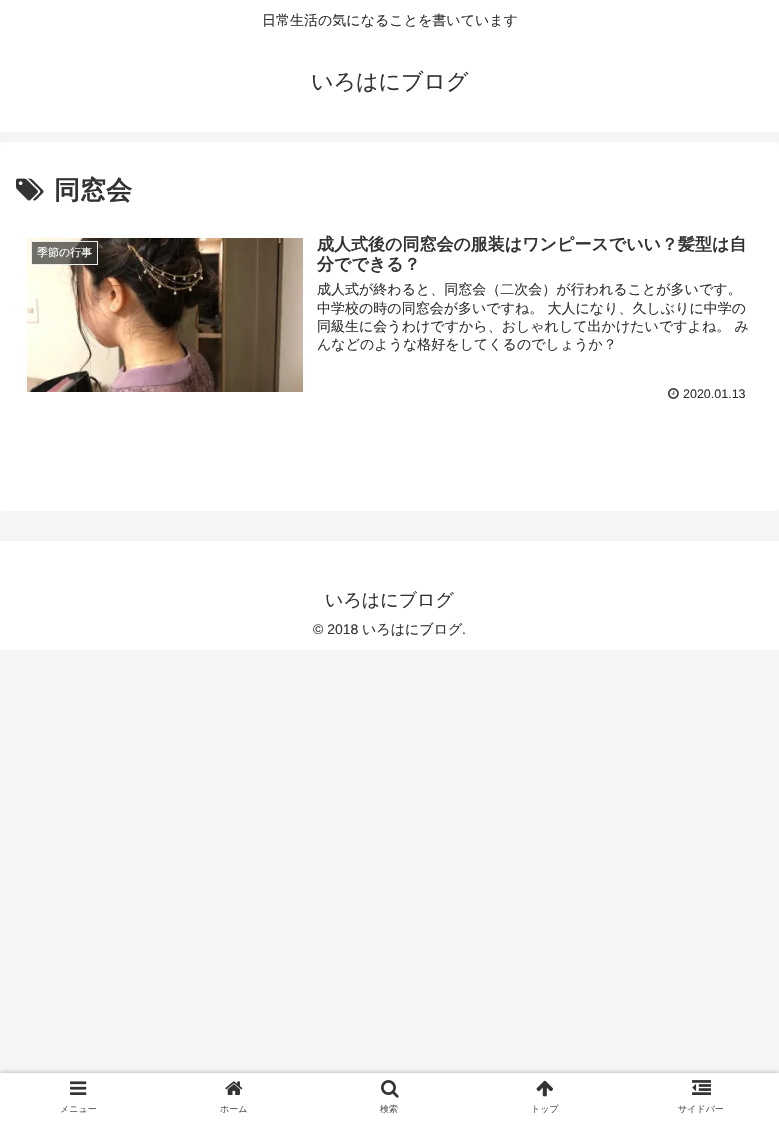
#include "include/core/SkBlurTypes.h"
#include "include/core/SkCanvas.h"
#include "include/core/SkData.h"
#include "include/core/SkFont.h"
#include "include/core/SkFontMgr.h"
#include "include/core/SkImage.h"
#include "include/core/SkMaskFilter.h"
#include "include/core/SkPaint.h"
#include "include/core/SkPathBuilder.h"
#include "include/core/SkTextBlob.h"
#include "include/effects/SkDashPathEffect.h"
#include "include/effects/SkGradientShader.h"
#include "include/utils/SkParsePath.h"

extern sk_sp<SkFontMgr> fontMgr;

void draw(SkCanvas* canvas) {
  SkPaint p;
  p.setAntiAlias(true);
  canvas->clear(SkColorSetRGB(244, 245, 247));
  p.setColor(SK_ColorWHITE);
  canvas->drawRect(SkRect::MakeLTRB(0, 0, 779, 132), p);
  canvas->drawRoundRect(SkRect::MakeLTRB(0, 142, 779, 511), 4, 4, p);
  canvas->drawImageRect(SkImages::DeferredFromEncodedData(SkData::MakeFromFileName("images/1.png")), SkRect::MakeLTRB(16, 178, 44, 201), SkSamplingOptions());
  canvas->drawImageRect(SkImages::DeferredFromEncodedData(SkData::MakeFromFileName("images/2.png")), SkRect::MakeLTRB(27, 238, 303, 392), SkSamplingOptions());
  p.setColor(SkColorSetARGB(179, 51, 51, 51));
  canvas->drawRect(SkRect::MakeLTRB(31.5f, 241.5f, 97.5f, 264.5f), p);
  p.setStyle(SkPaint::kStroke_Style);
  p.setStrokeWidth(1);
  p.setColor(SkColorSetRGB(238, 238, 238));
  canvas->drawRect(SkRect::MakeLTRB(31.5f, 241.5f, 97.5f, 264.5f), p);
  canvas->drawImageRect(SkImages::DeferredFromEncodedData(SkData::MakeFromFileName("images/3.png")), SkRect::MakeLTRB(668, 388, 679, 399), SkSamplingOptions());
  p.setStyle(SkPaint::kFill_Style);
  p.setColor(SK_ColorWHITE);
  canvas->drawRect(SkRect::MakeLTRB(0, 541, 779, 650), p);
  p.setColor(SkColorSetRGB(169, 169, 169));
  p.setMaskFilter(SkMaskFilter::MakeBlur(kNormal_SkBlurStyle, 2.5f));
  canvas->drawRect(SkRect::MakeLTRB(0, 1073, 779, 1123), p);
  p.setMaskFilter(nullptr);
  p.setColor(SK_ColorWHITE);
  canvas->drawRect(SkRect::MakeLTRB(0, 1073, 779, 1123), p);
  canvas->drawImageRect(SkImages::DeferredFromEncodedData(SkData::MakeFromFileName("images/4.png")), SkRect::MakeLTRB(70, 1081, 87, 1095), SkSamplingOptions());
  canvas->drawImageRect(SkImages::DeferredFromEncodedData(SkData::MakeFromFileName("images/5.png")), SkRect::MakeLTRB(225, 1081, 243, 1095), SkSamplingOptions());
  canvas->drawImageRect(SkImages::DeferredFromEncodedData(SkData::MakeFromFileName("images/6.png")), SkRect::MakeLTRB(381, 1080, 399, 1098), SkSamplingOptions());
  canvas->drawImageRect(SkImages::DeferredFromEncodedData(SkData::MakeFromFileName("images/7.png")), SkRect::MakeLTRB(536, 1080, 553, 1097), SkSamplingOptions());
  canvas->drawImageRect(SkImages::DeferredFromEncodedData(SkData::MakeFromFileName("images/8.png")), SkRect::MakeLTRB(692, 1080, 711, 1095), SkSamplingOptions());
  SkFont font1(fontMgr->matchFamilyStyle("WenQuanYi Zen Hei", SkFontStyle(500, SkFontStyle::kNormal_Width, SkFontStyle::kUpright_Slant)), 14);
  font1.setSubpixel(true);
  p.setColor(SkColorSetRGB(51, 51, 51));
  canvas->drawString("日常生活の気になることを書いています", 262, 25, font1, p);
  SkFont font2(fontMgr->matchFamilyStyle("WenQuanYi Zen Hei", SkFontStyle(500, SkFontStyle::kNormal_Width, SkFontStyle::kUpright_Slant)), 22);
  font2.setSubpixel(true);
  canvas->drawString("いろはにブログ", 311, 89, font2, p);
  SkFont font3(fontMgr->matchFamilyStyle("WenQuanYi Zen Hei", SkFontStyle::Bold()), 26);
  font3.setSubpixel(true);
  canvas->drawString("同窓会", 54, 199, font3, p);
  SkFont font4(fontMgr->matchFamilyStyle("WenQuanYi Zen Hei", SkFontStyle(500, SkFontStyle::kNormal_Width, SkFontStyle::kUpright_Slant)), 11);
  font4.setSubpixel(true);
  p.setColor(SK_ColorWHITE);
  canvas->drawString("季節の行事", 37, 256, font4, p);
  SkFont font5(fontMgr->matchFamilyStyle("WenQuanYi Zen Hei", SkFontStyle::Bold()), 17);
  font5.setSubpixel(true);
  p.setColor(SkColorSetRGB(51, 51, 51));
  canvas->drawString("成人式後の同窓会の服装はワンピースでいい？髪型は自", 317, 250, font5, p);
  canvas->drawString("分でできる？", 317, 270, font5, p);
  canvas->drawString("成人式が終わると、同窓会（二次会）が行われることが多いです。", 317, 294, font1, p);
  canvas->drawString("中学校の時の同窓会が多いですね。 大人になり、久しぶりに中学の", 317, 313, font1, p);
  canvas->drawString("同級生に会うわけですから、おしゃれして出かけたいですよね。 み", 317, 331, font1, p);
  canvas->drawString("んなどのような格好をしてくるのでしょうか？", 317, 349, font1, p);
  SkFont font6(fontMgr->matchFamilyStyle("Liberation Sans", SkFontStyle::Normal()), 12.5f);
  font6.setSubpixel(true);
  canvas->drawString("2020.01.13", 683, 398, font6, p);
  SkFont font7(fontMgr->matchFamilyStyle("WenQuanYi Zen Hei", SkFontStyle(500, SkFontStyle::kNormal_Width, SkFontStyle::kUpright_Slant)), 18);
  font7.setSubpixel(true);
  canvas->drawString("いろはにブログ", 325, 606, font7, p);
  SkFont font8(fontMgr->matchFamilyStyle("Liberation Sans", SkFontStyle::Normal()), 14);
  font8.setSubpixel(true);
  canvas->drawString("© 2018", 313, 634, font8, p);
  canvas->drawString("いろはにブログ", 362, 634, font1, p);
  canvas->drawString(".", 462, 634, font8, p);
  SkFont font9(fontMgr->matchFamilyStyle("WenQuanYi Zen Hei", SkFontStyle(500, SkFontStyle::kNormal_Width, SkFontStyle::kUpright_Slant)), 9);
  font9.setSubpixel(true);
  p.setColor(SkColorSetRGB(92, 92, 92));
  canvas->drawString("メニュー", 60, 1112, font9, p);
  canvas->drawString("ホーム", 220, 1112, font9, p);
  canvas->drawString("検索", 380, 1112, font9, p);
  canvas->drawString("トップ", 531, 1112, font9, p);
  canvas->drawString("サイドバー", 678, 1112, font9, p);
}
